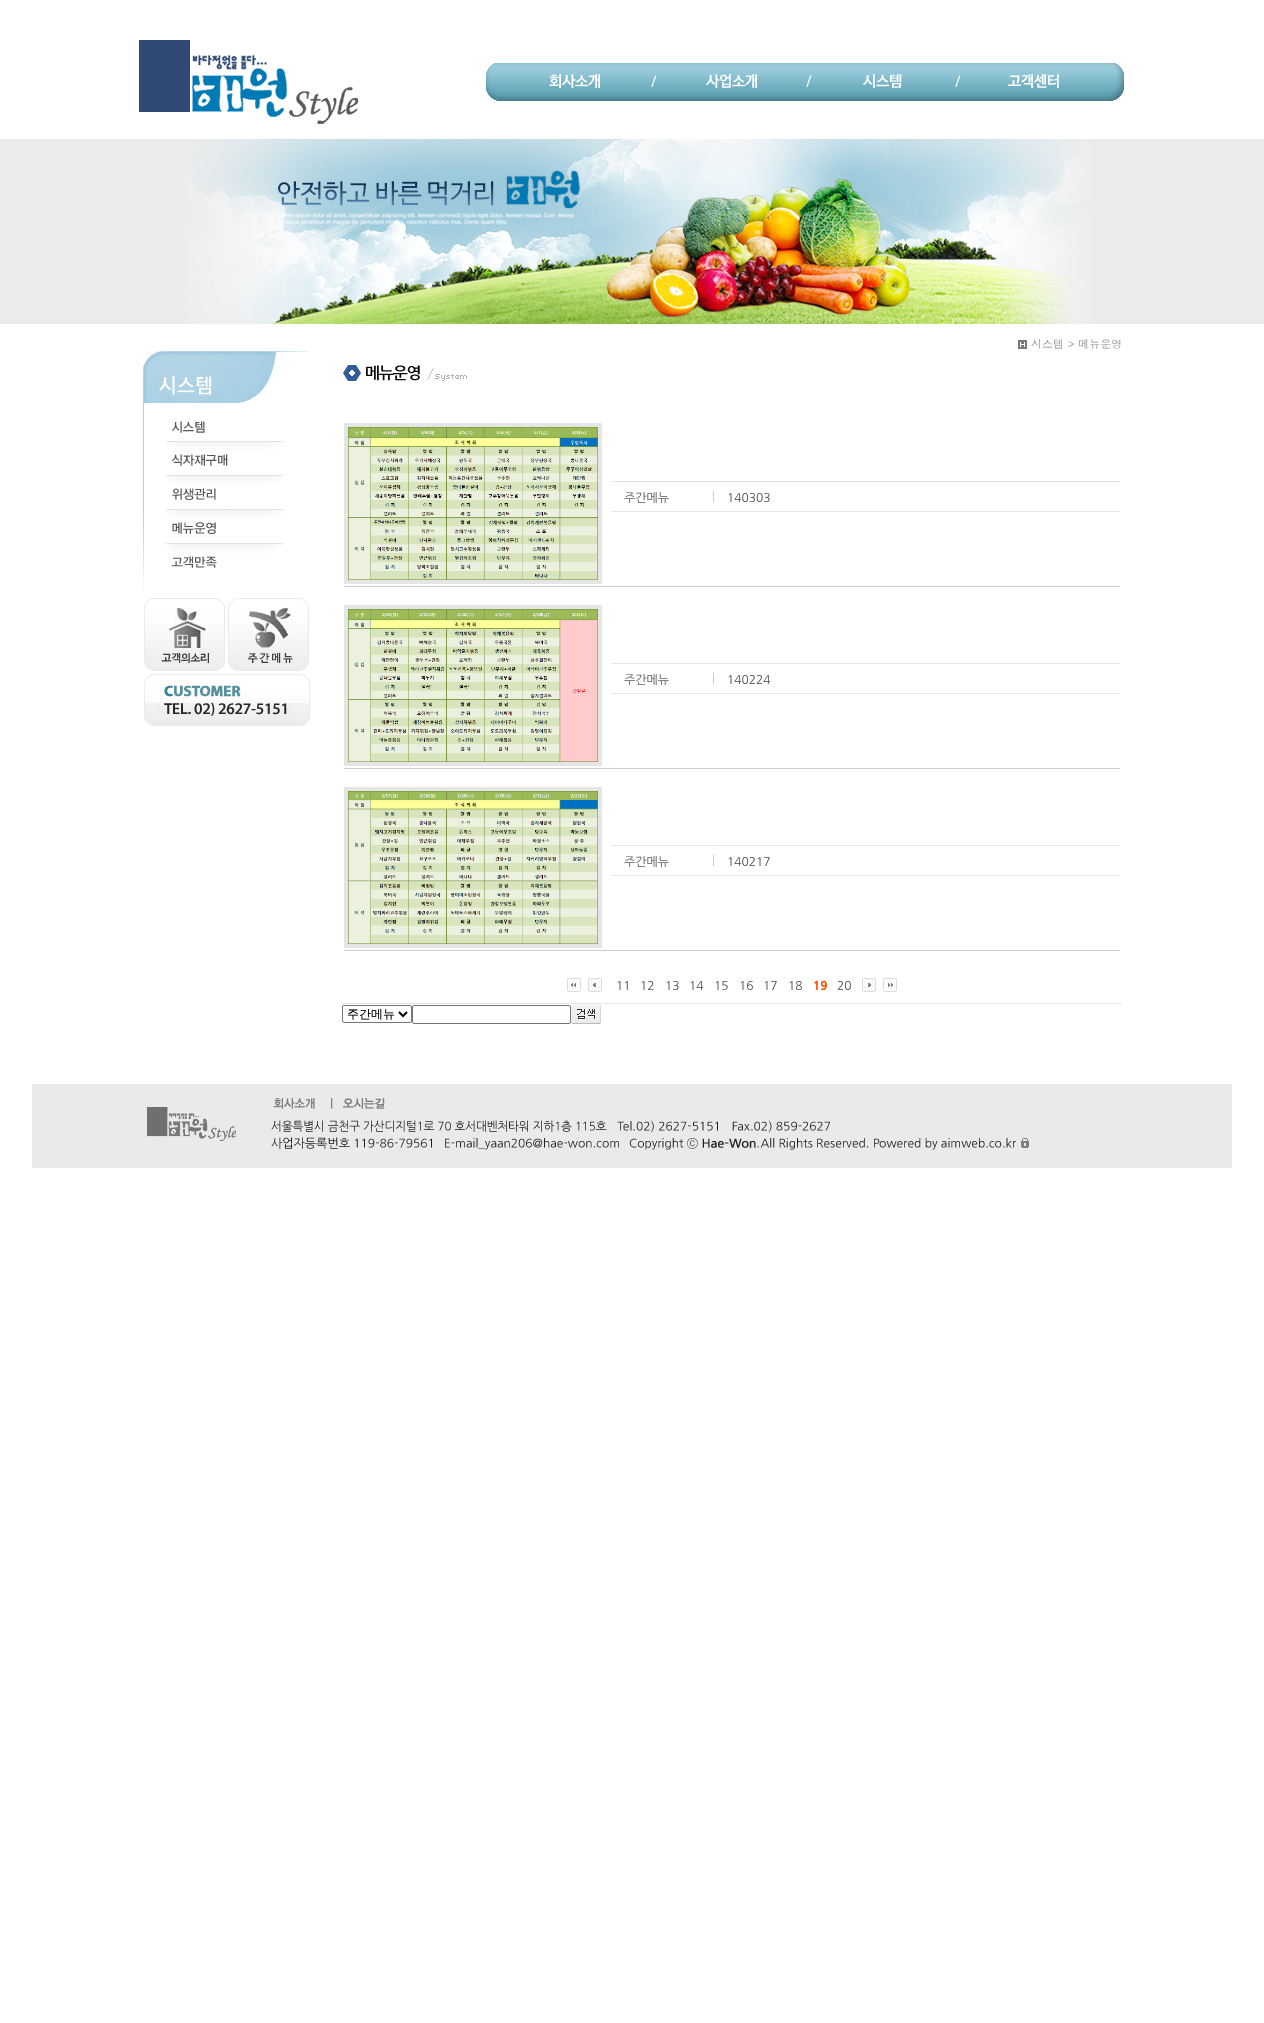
#include "include/core/SkBlurTypes.h"
#include "include/core/SkCanvas.h"
#include "include/core/SkData.h"
#include "include/core/SkFont.h"
#include "include/core/SkFontMgr.h"
#include "include/core/SkImage.h"
#include "include/core/SkMaskFilter.h"
#include "include/core/SkPaint.h"
#include "include/core/SkPathBuilder.h"
#include "include/core/SkTextBlob.h"
#include "include/effects/SkDashPathEffect.h"
#include "include/effects/SkGradientShader.h"
#include "include/utils/SkParsePath.h"

extern sk_sp<SkFontMgr> fontMgr;

void draw(SkCanvas* canvas) {
  SkPaint p;
  p.setAntiAlias(true);
  canvas->clear(SK_ColorWHITE);
  canvas->drawImageRect(SkImages::DeferredFromEncodedData(SkData::MakeFromFileName("images/1.png")), SkRect::MakeLTRB(139, 40, 358, 124), SkSamplingOptions());
  canvas->drawImageRect(SkImages::DeferredFromEncodedData(SkData::MakeFromFileName("images/2.png")), SkRect::MakeLTRB(486, 63, 1124, 101), SkSamplingOptions());
  canvas->drawImageRect(SkImages::DeferredFromEncodedData(SkData::MakeFromFileName("images/3.png")), SkRect::MakeLTRB(549, 74, 600, 88), SkSamplingOptions());
  canvas->drawImageRect(SkImages::DeferredFromEncodedData(SkData::MakeFromFileName("images/4.png")), SkRect::MakeLTRB(705, 74, 757, 88), SkSamplingOptions());
  canvas->drawImageRect(SkImages::DeferredFromEncodedData(SkData::MakeFromFileName("images/5.png")), SkRect::MakeLTRB(862, 74, 902, 88), SkSamplingOptions());
  canvas->drawImageRect(SkImages::DeferredFromEncodedData(SkData::MakeFromFileName("images/6.png")), SkRect::MakeLTRB(1008, 74, 1059, 88), SkSamplingOptions());
  p.setColor(SkColorSetRGB(235, 235, 235));
  canvas->drawRect(SkRect::MakeLTRB(0, 139, 1264, 324), p);
  canvas->drawImageRect(SkImages::DeferredFromEncodedData(SkData::MakeFromFileName("images/7.png")), SkRect::MakeLTRB(185, 139, 1089, 324), SkSamplingOptions());
  canvas->drawImageRect(SkImages::DeferredFromEncodedData(SkData::MakeFromFileName("images/8.png")), SkRect::MakeLTRB(143, 351, 309, 595), SkSamplingOptions());
  canvas->drawImageRect(SkImages::DeferredFromEncodedData(SkData::MakeFromFileName("images/9.png")), SkRect::MakeLTRB(159, 376, 212, 395), SkSamplingOptions());
  canvas->drawImageRect(SkImages::DeferredFromEncodedData(SkData::MakeFromFileName("images/10.png")), SkRect::MakeLTRB(171, 421, 205, 433), SkSamplingOptions());
  canvas->drawImageRect(SkImages::DeferredFromEncodedData(SkData::MakeFromFileName("images/11.png")), SkRect::MakeLTRB(171, 454, 228, 466), SkSamplingOptions());
  canvas->drawImageRect(SkImages::DeferredFromEncodedData(SkData::MakeFromFileName("images/12.png")), SkRect::MakeLTRB(172, 488, 216, 500), SkSamplingOptions());
  canvas->drawImageRect(SkImages::DeferredFromEncodedData(SkData::MakeFromFileName("images/13.png")), SkRect::MakeLTRB(172, 522, 216, 534), SkSamplingOptions());
  canvas->drawImageRect(SkImages::DeferredFromEncodedData(SkData::MakeFromFileName("images/14.png")), SkRect::MakeLTRB(171, 556, 217, 568), SkSamplingOptions());
  canvas->drawImageRect(SkImages::DeferredFromEncodedData(SkData::MakeFromFileName("images/15.png")), SkRect::MakeLTRB(144, 598, 225, 671), SkSamplingOptions());
  canvas->drawImageRect(SkImages::DeferredFromEncodedData(SkData::MakeFromFileName("images/16.png")), SkRect::MakeLTRB(228, 598, 309, 671), SkSamplingOptions());
  canvas->drawImageRect(SkImages::DeferredFromEncodedData(SkData::MakeFromFileName("images/17.png")), SkRect::MakeLTRB(144, 674, 310, 726), SkSamplingOptions());
  canvas->drawImageRect(SkImages::DeferredFromEncodedData(SkData::MakeFromFileName("images/18.png")), SkRect::MakeLTRB(1018, 340, 1027, 349), SkSamplingOptions());
  canvas->drawImageRect(SkImages::DeferredFromEncodedData(SkData::MakeFromFileName("images/19.png")), SkRect::MakeLTRB(343, 365, 467, 381), SkSamplingOptions());
  p.setStyle(SkPaint::kStroke_Style);
  p.setStrokeWidth(4);
  p.setColor(SkColorSetRGB(229, 229, 229));
  canvas->drawRect(SkRect::MakeLTRB(346, 425, 600, 582), p);
  canvas->drawImageRect(SkImages::DeferredFromEncodedData(SkData::MakeFromFileName("images/20.png")), SkRect::MakeLTRB(348, 427, 598, 580), SkSamplingOptions());
  p.setStyle(SkPaint::kFill_Style);
  canvas->drawRect(SkRect::MakeLTRB(612, 481, 1120, 482), p);
  canvas->drawRect(SkRect::MakeLTRB(612, 511, 1120, 512), p);
  p.setColor(SkColorSetRGB(204, 204, 204));
  canvas->drawRect(SkRect::MakeLTRB(713, 491, 714, 502), p);
  canvas->drawRect(SkRect::MakeLTRB(344, 586, 1120, 587), p);
  p.setStyle(SkPaint::kStroke_Style);
  p.setColor(SkColorSetRGB(229, 229, 229));
  canvas->drawRect(SkRect::MakeLTRB(346, 607, 600, 764), p);
  canvas->drawImageRect(SkImages::DeferredFromEncodedData(SkData::MakeFromFileName("images/21.png")), SkRect::MakeLTRB(348, 609, 598, 762), SkSamplingOptions());
  p.setStyle(SkPaint::kFill_Style);
  canvas->drawRect(SkRect::MakeLTRB(612, 663, 1120, 664), p);
  canvas->drawRect(SkRect::MakeLTRB(612, 693, 1120, 694), p);
  p.setColor(SkColorSetRGB(204, 204, 204));
  canvas->drawRect(SkRect::MakeLTRB(713, 673, 714, 684), p);
  canvas->drawRect(SkRect::MakeLTRB(344, 768, 1120, 769), p);
  p.setStyle(SkPaint::kStroke_Style);
  p.setColor(SkColorSetRGB(229, 229, 229));
  canvas->drawRect(SkRect::MakeLTRB(346, 789, 600, 946), p);
  canvas->drawImageRect(SkImages::DeferredFromEncodedData(SkData::MakeFromFileName("images/22.png")), SkRect::MakeLTRB(348, 791, 598, 944), SkSamplingOptions());
  p.setStyle(SkPaint::kFill_Style);
  canvas->drawRect(SkRect::MakeLTRB(612, 845, 1120, 846), p);
  canvas->drawRect(SkRect::MakeLTRB(612, 875, 1120, 876), p);
  p.setColor(SkColorSetRGB(204, 204, 204));
  canvas->drawRect(SkRect::MakeLTRB(713, 855, 714, 866), p);
  canvas->drawRect(SkRect::MakeLTRB(344, 950, 1120, 951), p);
  canvas->drawImageRect(SkImages::DeferredFromEncodedData(SkData::MakeFromFileName("images/23.png")), SkRect::MakeLTRB(567, 978, 581, 992), SkSamplingOptions());
  canvas->drawImageRect(SkImages::DeferredFromEncodedData(SkData::MakeFromFileName("images/24.png")), SkRect::MakeLTRB(588, 978, 602, 992), SkSamplingOptions());
  canvas->drawImageRect(SkImages::DeferredFromEncodedData(SkData::MakeFromFileName("images/25.png")), SkRect::MakeLTRB(862, 978, 876, 992), SkSamplingOptions());
  canvas->drawImageRect(SkImages::DeferredFromEncodedData(SkData::MakeFromFileName("images/26.png")), SkRect::MakeLTRB(883, 978, 897, 992), SkSamplingOptions());
  p.setColor(SkColorSetRGB(229, 229, 229));
  canvas->drawRect(SkRect::MakeLTRB(342, 1003, 1122, 1004), p);
  p.setStyle(SkPaint::kStroke_Style);
  p.setStrokeWidth(1);
  p.setColor(SkColorSetRGB(118, 118, 118));
  canvas->drawRoundRect(SkRect::MakeLTRB(342.5f, 1005.5f, 411.5f, 1022.5f), 1.5f, 1.5f, p);
  p.setStrokeWidth(2);
  p.setColor(SK_ColorBLACK);
  canvas->drawPath(SkPathBuilder().moveTo(399, 1012).lineTo(403, 1016).lineTo(407, 1012).detach(), p);
  p.setStrokeWidth(1);
  p.setColor(SkColorSetRGB(118, 118, 118));
  canvas->drawRoundRect(SkRect::MakeLTRB(412.5f, 1005.5f, 570.5f, 1023.5f), 1.5f, 1.5f, p);
  canvas->drawImageRect(SkImages::DeferredFromEncodedData(SkData::MakeFromFileName("images/27.png")), SkRect::MakeLTRB(571, 1004, 601, 1024), SkSamplingOptions());
  p.setStyle(SkPaint::kFill_Style);
  p.setColor(SkColorSetRGB(234, 234, 234));
  canvas->drawRect(SkRect::MakeLTRB(32, 1084, 1232, 1168), p);
  canvas->drawImageRect(SkImages::DeferredFromEncodedData(SkData::MakeFromFileName("images/28.png")), SkRect::MakeLTRB(147, 1098, 1029, 1150), SkSamplingOptions());
  SkFont font1(fontMgr->matchFamilyStyle("Dotum", SkFontStyle::Normal()), 11);
  font1.setSubpixel(true);
  p.setColor(SkColorSetRGB(153, 153, 153));
  canvas->drawString("시스템 > 메뉴운영", 1031, 348, font1, p);
  SkFont font2(fontMgr->matchFamilyStyle("NanumGothic", SkFontStyle::Normal()), 12);
  font2.setSubpixel(true);
  p.setColor(SkColorSetRGB(102, 102, 102));
  canvas->drawString("주간메뉴", 624, 502, font2, p);
  p.setColor(SkColorSetRGB(85, 85, 85));
  canvas->drawString("140303", 727, 502, font2, p);
  p.setColor(SkColorSetRGB(102, 102, 102));
  canvas->drawString("주간메뉴", 624, 684, font2, p);
  p.setColor(SkColorSetRGB(85, 85, 85));
  canvas->drawString("140224", 727, 684, font2, p);
  p.setColor(SkColorSetRGB(102, 102, 102));
  canvas->drawString("주간메뉴", 624, 866, font2, p);
  p.setColor(SkColorSetRGB(85, 85, 85));
  canvas->drawString("140217", 727, 866, font2, p);
  canvas->drawString("11", 616, 990, font2, p);
  canvas->drawString("12", 640, 990, font2, p);
  canvas->drawString("13", 665, 990, font2, p);
  canvas->drawString("14", 689, 990, font2, p);
  canvas->drawString("15", 714, 990, font2, p);
  canvas->drawString("16", 739, 990, font2, p);
  canvas->drawString("17", 763, 990, font2, p);
  canvas->drawString("18", 788, 990, font2, p);
  SkFont font3(fontMgr->matchFamilyStyle("NanumGothic", SkFontStyle(800, SkFontStyle::kNormal_Width, SkFontStyle::kUpright_Slant)), 12);
  font3.setSubpixel(true);
  p.setColor(SkColorSetRGB(255, 85, 0));
  canvas->drawString("19", 813, 990, font3, p);
  p.setColor(SkColorSetRGB(85, 85, 85));
  canvas->drawString("20", 837, 990, font2, p);
  SkFont font4(fontMgr->matchFamilyStyle("WenQuanYi Zen Hei", SkFontStyle(500, SkFontStyle::kNormal_Width, SkFontStyle::kUpright_Slant)), 12);
  font4.setSubpixel(true);
  p.setColor(SK_ColorBLACK);
  canvas->drawString("주간메뉴", 347, 1018, font4, p);
}
